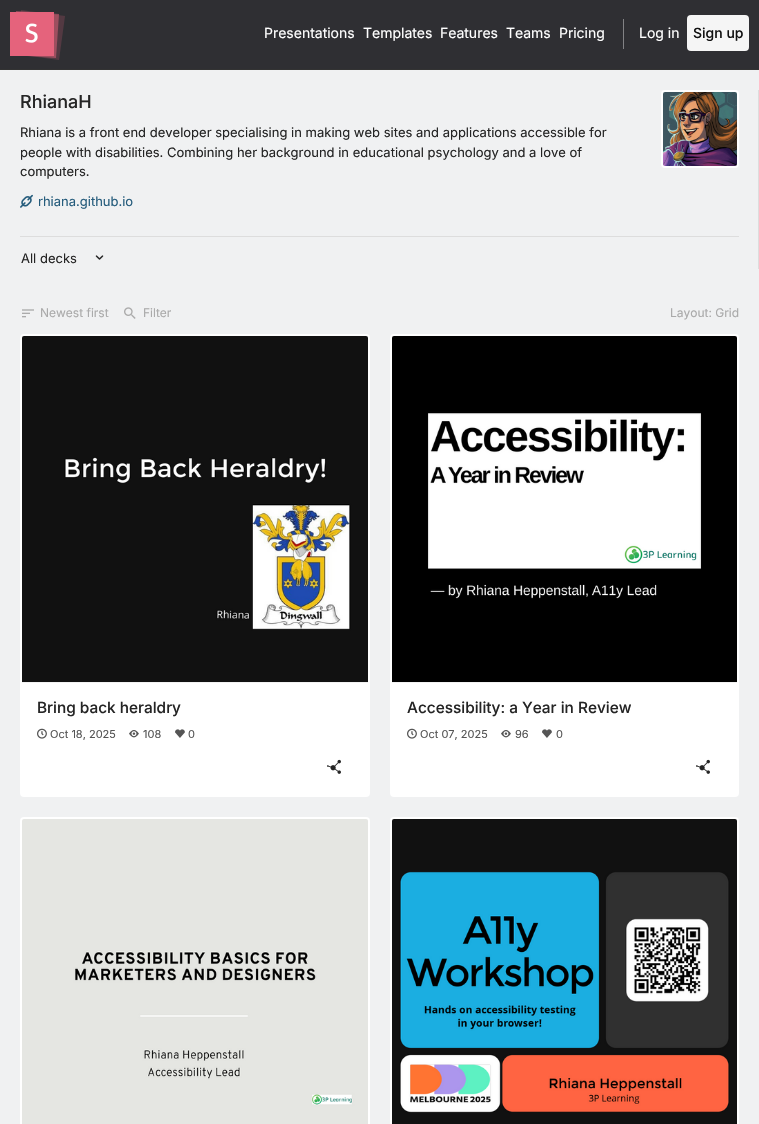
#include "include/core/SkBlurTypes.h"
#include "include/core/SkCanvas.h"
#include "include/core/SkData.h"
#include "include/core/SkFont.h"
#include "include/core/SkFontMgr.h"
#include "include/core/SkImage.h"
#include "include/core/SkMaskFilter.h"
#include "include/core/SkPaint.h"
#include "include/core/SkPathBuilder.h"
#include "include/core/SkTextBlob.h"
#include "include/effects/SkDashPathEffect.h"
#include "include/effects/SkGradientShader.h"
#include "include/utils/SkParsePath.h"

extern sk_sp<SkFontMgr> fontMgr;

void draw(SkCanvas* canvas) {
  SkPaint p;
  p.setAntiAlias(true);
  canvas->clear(SkColorSetRGB(240, 241, 242));
  p.setColor(SkColorSetRGB(47, 47, 51));
  canvas->drawRect(SkRect::MakeLTRB(0, 0, 759, 69), p);
  p.setColor(SkColorSetRGB(51, 51, 51));
  canvas->drawRect(SkRect::MakeLTRB(0, 69, 759, 70), p);
  p.setColor(SkColorSetRGB(83, 57, 66));
  canvas->drawPath(SkPathBuilder().moveTo(21, 10).lineTo(65, 16).lineTo(59, 60).lineTo(15, 54).close().detach(), p);
  p.setColor(SkColorSetARGB(128, 229, 99, 124));
  canvas->drawPath(SkPathBuilder().moveTo(16, 11).lineTo(59, 14).lineTo(56, 58).lineTo(13, 55).close().detach(), p);
  p.setColor(SkColorSetRGB(229, 99, 124));
  canvas->drawRect(SkRect::MakeLTRB(10, 12, 54, 56), p);
  canvas->drawImageRect(SkImages::DeferredFromEncodedData(SkData::MakeFromFileName("images/1.png")), SkRect::MakeLTRB(25, 23, 38, 43), SkSamplingOptions());
  p.setColor(SkColorSetRGB(130, 130, 133));
  canvas->drawRect(SkRect::MakeLTRB(623, 19, 624, 49), p);
  p.setColor(SkColorSetRGB(245, 245, 245));
  canvas->drawRoundRect(SkRect::MakeLTRB(687, 15, 749, 51), 4, 4, p);
  p.setColor(SkColorSetRGB(221, 221, 221));
  canvas->drawRect(SkRect::MakeLTRB(20, 236, 739, 237), p);
  canvas->drawImageRect(SkImages::DeferredFromEncodedData(SkData::MakeFromFileName("images/2.png")), SkRect::MakeLTRB(20, 194, 33, 208), SkSamplingOptions());
  canvas->drawImageRect(SkImages::DeferredFromEncodedData(SkData::MakeFromFileName("images/3.png")), SkRect::MakeLTRB(663, 92, 737, 166), SkSamplingOptions());
  p.setStyle(SkPaint::kStroke_Style);
  p.setStrokeWidth(2);
  p.setColor(SK_ColorWHITE);
  canvas->drawRoundRect(SkRect::MakeLTRB(662, 91, 738, 167), 3, 3, p);
  p.setStyle(SkPaint::kFill_Style);
  p.setColor(SkColorSetRGB(221, 221, 221));
  canvas->drawRect(SkRect::MakeLTRB(758, 90, 759, 269), p);
  canvas->drawImageRect(SkImages::DeferredFromEncodedData(SkData::MakeFromFileName("images/4.png")), SkRect::MakeLTRB(95, 255, 104, 260), SkSamplingOptions());
  canvas->drawImageRect(SkImages::DeferredFromEncodedData(SkData::MakeFromFileName("images/5.png")), SkRect::MakeLTRB(22, 309, 34, 318), SkSamplingOptions());
  canvas->drawImageRect(SkImages::DeferredFromEncodedData(SkData::MakeFromFileName("images/6.png")), SkRect::MakeLTRB(124, 307, 136, 319), SkSamplingOptions());
  p.setColor(SK_ColorWHITE);
  canvas->drawRoundRect(SkRect::MakeLTRB(20, 334, 370, 797), 4, 4, p);
  p.setColor(SkColorSetRGB(242, 242, 242));
  canvas->drawRect(SkRect::MakeLTRB(22, 682, 368, 683), p);
  canvas->drawImageRect(SkImages::DeferredFromEncodedData(SkData::MakeFromFileName("images/7.png")), SkRect::MakeLTRB(22, 336, 368, 682), SkSamplingOptions());
  canvas->drawImageRect(SkImages::DeferredFromEncodedData(SkData::MakeFromFileName("images/8.png")), SkRect::MakeLTRB(37, 728, 47, 739), SkSamplingOptions());
  canvas->drawImageRect(SkImages::DeferredFromEncodedData(SkData::MakeFromFileName("images/9.png")), SkRect::MakeLTRB(129, 730, 139, 738), SkSamplingOptions());
  canvas->drawImageRect(SkImages::DeferredFromEncodedData(SkData::MakeFromFileName("images/10.png")), SkRect::MakeLTRB(175, 729, 185, 738), SkSamplingOptions());
  canvas->drawImageRect(SkImages::DeferredFromEncodedData(SkData::MakeFromFileName("images/11.png")), SkRect::MakeLTRB(327, 759, 341, 774), SkSamplingOptions());
  p.setColor(SK_ColorWHITE);
  canvas->drawRoundRect(SkRect::MakeLTRB(390, 334, 739, 797), 4, 4, p);
  p.setColor(SkColorSetRGB(242, 242, 242));
  canvas->drawRect(SkRect::MakeLTRB(392, 682, 737, 683), p);
  canvas->drawImageRect(SkImages::DeferredFromEncodedData(SkData::MakeFromFileName("images/12.png")), SkRect::MakeLTRB(392, 336, 737, 682), SkSamplingOptions());
  canvas->drawImageRect(SkImages::DeferredFromEncodedData(SkData::MakeFromFileName("images/8.png")), SkRect::MakeLTRB(407, 728, 417, 739), SkSamplingOptions());
  canvas->drawImageRect(SkImages::DeferredFromEncodedData(SkData::MakeFromFileName("images/9.png")), SkRect::MakeLTRB(501, 730, 511, 738), SkSamplingOptions());
  canvas->drawImageRect(SkImages::DeferredFromEncodedData(SkData::MakeFromFileName("images/10.png")), SkRect::MakeLTRB(542, 729, 552, 738), SkSamplingOptions());
  canvas->drawImageRect(SkImages::DeferredFromEncodedData(SkData::MakeFromFileName("images/11.png")), SkRect::MakeLTRB(696, 759, 710, 774), SkSamplingOptions());
  p.setColor(SK_ColorWHITE);
  canvas->drawRoundRect(SkRect::MakeLTRB(20, 817, 370, 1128), 4, 4, p);
  canvas->drawImageRect(SkImages::DeferredFromEncodedData(SkData::MakeFromFileName("images/13.png")), SkRect::MakeLTRB(22, 819, 368, 1124), SkSamplingOptions());
  canvas->drawRoundRect(SkRect::MakeLTRB(390, 817, 739, 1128), 4, 4, p);
  canvas->drawImageRect(SkImages::DeferredFromEncodedData(SkData::MakeFromFileName("images/14.png")), SkRect::MakeLTRB(392, 819, 737, 1124), SkSamplingOptions());
  SkFont font1(fontMgr->matchFamilyStyle("Inter", SkFontStyle::Normal()), 14);
  font1.setSubpixel(true);
  canvas->drawString("Presentations", 264, 38, font1, p);
  canvas->drawString("Templates", 363, 38, font1, p);
  canvas->drawString("Features", 440, 38, font1, p);
  canvas->drawString("Teams", 506, 38, font1, p);
  canvas->drawString("Pricing", 559, 38, font1, p);
  canvas->drawString("Log in", 639, 38, font1, p);
  SkFont font2(fontMgr->matchFamilyStyle("Inter", SkFontStyle(500, SkFontStyle::kNormal_Width, SkFontStyle::kUpright_Slant)), 14);
  font2.setSubpixel(true);
  p.setColor(SkColorSetRGB(17, 17, 17));
  canvas->drawString("Sign up", 693, 38, font2, p);
  SkFont font3(fontMgr->matchFamilyStyle("Inter", SkFontStyle(500, SkFontStyle::kNormal_Width, SkFontStyle::kUpright_Slant)), 18);
  font3.setSubpixel(true);
  p.setColor(SkColorSetRGB(37, 37, 37));
  canvas->drawString("RhianaH", 20, 108, font3, p);
  SkFont font4(fontMgr->matchFamilyStyle("Inter", SkFontStyle::Normal()), 13);
  font4.setSubpixel(true);
  canvas->drawString("Rhiana is a front end developer specialising in making web sites and applications accessible for", 20, 137, font4, p);
  canvas->drawString("people with disabilities. Combining her background in educational psychology and a love of", 20, 157, font4, p);
  canvas->drawString("computers.", 20, 176, font4, p);
  p.setColor(SkColorSetRGB(37, 92, 124));
  canvas->drawString("rhiana.github.io", 38, 206, font4, p);
  p.setColor(SkColorSetRGB(37, 37, 37));
  canvas->drawString("All decks", 21, 263, font4, p);
  SkFont font5(fontMgr->matchFamilyStyle("Inter", SkFontStyle::Normal()), 12);
  font5.setSubpixel(true);
  p.setColor(SkColorSetRGB(170, 170, 170));
  canvas->drawString("Newest first", 40, 317, font5, p);
  canvas->drawString("Filter", 143, 317, font5, p);
  canvas->drawString("Layout: Grid", 670, 317, font5, p);
  SkFont font6(fontMgr->matchFamilyStyle("Inter", SkFontStyle(500, SkFontStyle::kNormal_Width, SkFontStyle::kUpright_Slant)), 15.4f);
  font6.setSubpixel(true);
  p.setColor(SkColorSetRGB(37, 37, 37));
  canvas->drawString("Bring back heraldry", 37, 713, font6, p);
  SkFont font7(fontMgr->matchFamilyStyle("Inter", SkFontStyle::Normal()), 11);
  font7.setSubpixel(true);
  p.setColor(SkColorSetRGB(85, 85, 85));
  canvas->drawString("Oct 18, 2025", 50, 738, font7, p);
  canvas->drawString("108", 143, 738, font7, p);
  canvas->drawString("0", 188, 738, font7, p);
  p.setColor(SkColorSetRGB(37, 37, 37));
  canvas->drawString("Accessibility: a Year in Review", 407, 713, font6, p);
  p.setColor(SkColorSetRGB(85, 85, 85));
  canvas->drawString("Oct 07, 2025", 420, 738, font7, p);
  canvas->drawString("96", 515, 738, font7, p);
  canvas->drawString("0", 556, 738, font7, p);
}
